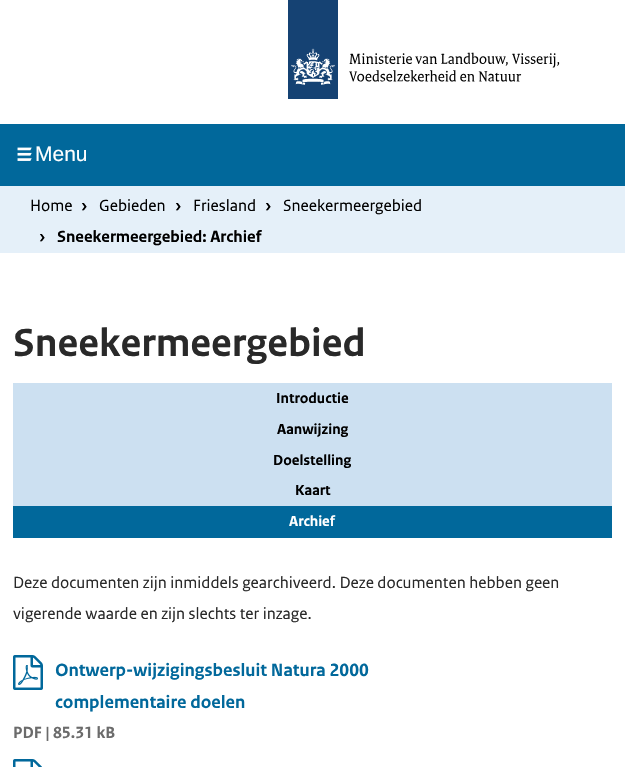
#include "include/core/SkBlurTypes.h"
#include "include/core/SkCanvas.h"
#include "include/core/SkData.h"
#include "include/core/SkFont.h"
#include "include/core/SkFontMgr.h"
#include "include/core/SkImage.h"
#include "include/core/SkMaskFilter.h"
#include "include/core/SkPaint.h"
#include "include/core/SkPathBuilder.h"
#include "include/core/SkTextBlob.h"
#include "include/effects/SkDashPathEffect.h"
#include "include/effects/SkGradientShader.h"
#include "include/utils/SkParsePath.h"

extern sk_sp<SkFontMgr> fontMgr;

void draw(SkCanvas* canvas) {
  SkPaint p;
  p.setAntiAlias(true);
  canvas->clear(SK_ColorWHITE);
  canvas->drawImageRect(SkImages::DeferredFromEncodedData(SkData::MakeFromFileName("images/1.png")), SkRect::MakeLTRB(288, 0, 560, 99), SkSamplingOptions());
  p.setColor(SkColorSetRGB(1, 104, 155));
  canvas->drawRect(SkRect::MakeLTRB(0, 124, 625, 186), p);
  canvas->drawImageRect(SkImages::DeferredFromEncodedData(SkData::MakeFromFileName("images/2.png")), SkRect::MakeLTRB(17, 147, 32, 161), SkSamplingOptions());
  p.setColor(SkColorSetRGB(229, 240, 249));
  canvas->drawRect(SkRect::MakeLTRB(0, 186, 625, 253), p);
  p.setColor(SkColorSetRGB(1, 104, 155));
  canvas->drawRect(SkRect::MakeLTRB(13, 506, 612, 538), p);
  p.setColor(SkColorSetRGB(204, 224, 241));
  canvas->drawRect(SkRect::MakeLTRB(13, 383, 612, 506), p);
  canvas->drawImageRect(SkImages::DeferredFromEncodedData(SkData::MakeFromFileName("images/3.png")), SkRect::MakeLTRB(13, 655, 43, 690), SkSamplingOptions());
  canvas->drawImageRect(SkImages::DeferredFromEncodedData(SkData::MakeFromFileName("images/4.png")), SkRect::MakeLTRB(13, 759, 42, 767), SkSamplingOptions());
  SkFont font1(fontMgr->matchFamilyStyle("Liberation Sans", SkFontStyle::Normal()), 21);
  font1.setSubpixel(true);
  p.setColor(SK_ColorWHITE);
  canvas->drawString("Menu", 35, 161, font1, p);
  SkFont font2(fontMgr->matchFamilyStyle("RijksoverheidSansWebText", SkFontStyle::Normal()), 17);
  font2.setSubpixel(true);
  p.setColor(SK_ColorBLACK);
  canvas->drawString("Home", 30, 211, font2, p);
  SkFont font3(fontMgr->matchFamilyStyle("RijksoverheidSansWebText", SkFontStyle::Bold()), 17);
  font3.setSubpixel(true);
  canvas->drawString("›", 81, 211, font3, p);
  canvas->drawString("Gebieden", 99, 211, font2, p);
  canvas->drawString("›", 175, 211, font3, p);
  canvas->drawString("Friesland", 193, 211, font2, p);
  canvas->drawString("›", 265, 211, font3, p);
  canvas->drawString("Sneekermeergebied", 283, 211, font2, p);
  canvas->drawString("›", 39, 242, font3, p);
  canvas->drawString("Sneekermeergebied: Archief", 57, 242, font3, p);
  SkFont font4(fontMgr->matchFamilyStyle("RijksoverheidSansWebText", SkFontStyle::Bold()), 41.25f);
  font4.setSubpixel(true);
  p.setColor(SkColorSetRGB(41, 41, 41));
  canvas->drawString("Sneekermeergebied", 13, 356, font4, p);
  SkFont font5(fontMgr->matchFamilyStyle("RijksoverheidSansWebText", SkFontStyle::Bold()), 15.25f);
  font5.setSubpixel(true);
  p.setColor(SK_ColorBLACK);
  canvas->drawString("Introductie", 276, 403, font5, p);
  canvas->drawString("Aanwijzing", 277, 434, font5, p);
  canvas->drawString("Doelstelling", 273, 465, font5, p);
  canvas->drawString("Kaart", 295, 495, font5, p);
  p.setColor(SK_ColorWHITE);
  canvas->drawString("Archief", 289, 526, font5, p);
  p.setColor(SkColorSetRGB(41, 41, 41));
  canvas->drawString("Deze documenten zijn inmiddels gearchiveerd. Deze documenten hebben geen", 13, 588, font2, p);
  canvas->drawString("vigerende waarde en zijn slechts ter inzage.", 13, 619, font2, p);
  SkFont font6(fontMgr->matchFamilyStyle("RijksoverheidSansWebText", SkFontStyle::Bold()), 18.75f);
  font6.setSubpixel(true);
  p.setColor(SkColorSetRGB(1, 104, 155));
  canvas->drawString("Ontwerp-wijzigingsbesluit Natura 2000", 55, 676, font6, p);
  canvas->drawString("complementaire doelen", 55, 708, font6, p);
  p.setColor(SkColorSetRGB(107, 107, 107));
  canvas->drawString("PDF | 85.31 kB", 13, 738, font3, p);
}
